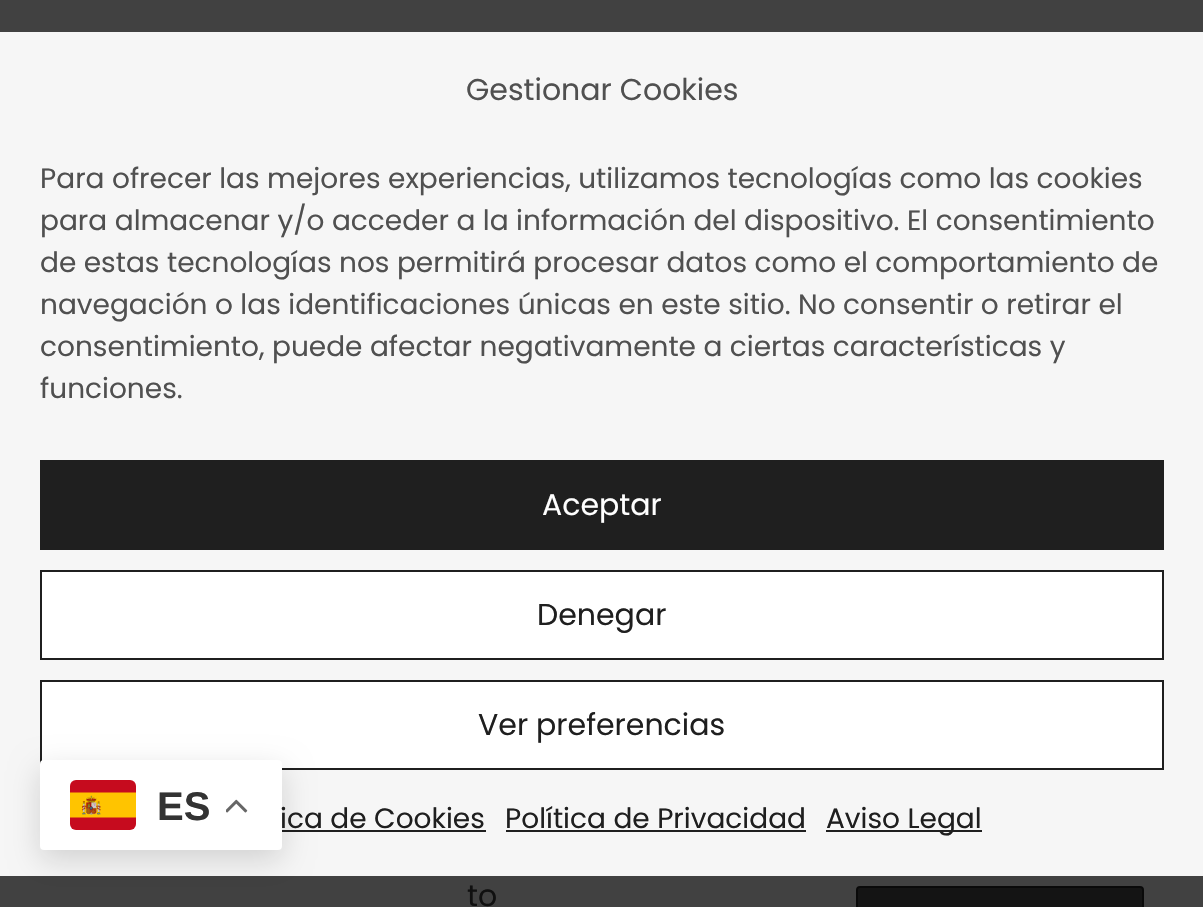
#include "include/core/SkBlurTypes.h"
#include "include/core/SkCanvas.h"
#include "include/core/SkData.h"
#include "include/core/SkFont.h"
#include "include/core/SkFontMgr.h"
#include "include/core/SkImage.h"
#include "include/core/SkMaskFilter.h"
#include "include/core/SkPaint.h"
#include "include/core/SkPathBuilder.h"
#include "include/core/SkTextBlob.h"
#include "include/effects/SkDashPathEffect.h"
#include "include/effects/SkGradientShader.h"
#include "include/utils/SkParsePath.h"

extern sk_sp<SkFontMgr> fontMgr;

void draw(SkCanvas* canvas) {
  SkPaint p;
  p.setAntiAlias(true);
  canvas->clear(SkColorSetRGB(65, 65, 65));
  p.setColor(SkColorSetRGB(246, 246, 246));
  canvas->drawRect(SkRect::MakeLTRB(0, 32, 1203, 876), p);
  p.setColor(SkColorSetRGB(31, 31, 31));
  canvas->drawRect(SkRect::MakeLTRB(40, 460, 1164, 550), p);
  p.setColor(SK_ColorWHITE);
  canvas->drawRect(SkRect::MakeLTRB(41, 571, 1163, 659), p);
  p.setStyle(SkPaint::kStroke_Style);
  p.setStrokeWidth(2);
  p.setColor(SkColorSetRGB(31, 31, 31));
  canvas->drawRect(SkRect::MakeLTRB(41, 571, 1163, 659), p);
  p.setStyle(SkPaint::kFill_Style);
  p.setColor(SK_ColorWHITE);
  canvas->drawRect(SkRect::MakeLTRB(41, 681, 1163, 769), p);
  p.setStyle(SkPaint::kStroke_Style);
  p.setColor(SkColorSetRGB(31, 31, 31));
  canvas->drawRect(SkRect::MakeLTRB(41, 681, 1163, 769), p);
  p.setStyle(SkPaint::kFill_Style);
  canvas->drawRect(SkRect::MakeLTRB(282, 830, 486, 832), p);
  canvas->drawRect(SkRect::MakeLTRB(506, 830, 806, 832), p);
  canvas->drawRect(SkRect::MakeLTRB(826, 830, 982, 832), p);
  p.setColor(SkColorSetARGB(38, 0, 0, 0));
  p.setMaskFilter(SkMaskFilter::MakeBlur(kNormal_SkBlurStyle, 15));
  canvas->drawRoundRect(SkRect::MakeLTRB(40, 770, 282, 860), 4, 4, p);
  p.setMaskFilter(nullptr);
  p.setColor(SK_ColorWHITE);
  canvas->drawRoundRect(SkRect::MakeLTRB(40, 760, 282, 850), 4, 4, p);
  canvas->drawImageRect(SkImages::DeferredFromEncodedData(SkData::MakeFromFileName("images/1.png")), SkRect::MakeLTRB(70, 780, 136, 830), SkSamplingOptions());
  canvas->drawImageRect(SkImages::DeferredFromEncodedData(SkData::MakeFromFileName("images/2.png")), SkRect::MakeLTRB(226, 799, 248, 813), SkSamplingOptions());
  p.setColor(SkColorSetRGB(20, 20, 20));
  canvas->drawRoundRect(SkRect::MakeLTRB(857, 887, 1143, 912), 3, 3, p);
  p.setStyle(SkPaint::kStroke_Style);
  p.setColor(SkColorSetRGB(9, 9, 9));
  canvas->drawRoundRect(SkRect::MakeLTRB(857, 887, 1143, 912), 3, 3, p);
  SkFont font1(fontMgr->matchFamilyStyle("Poppins", SkFontStyle::Normal()), 30);
  font1.setSubpixel(true);
  p.setStyle(SkPaint::kFill_Style);
  p.setColor(SkColorSetRGB(80, 80, 80));
  canvas->drawString("Gestionar Cookies", 466, 100, font1, p);
  SkFont font2(fontMgr->matchFamilyStyle("Poppins", SkFontStyle::Normal()), 28);
  font2.setSubpixel(true);
  canvas->drawString("Para ofrecer las mejores experiencias, utilizamos tecnologías como las cookies", 40, 188, font2, p);
  canvas->drawString("para almacenar y/o acceder a la información del dispositivo. El consentimiento", 40, 230, font2, p);
  canvas->drawString("de estas tecnologías nos permitirá procesar datos como el comportamiento de", 40, 272, font2, p);
  canvas->drawString("navegación o las identificaciones únicas en este sitio. No consentir o retirar el", 40, 314, font2, p);
  canvas->drawString("consentimiento, puede afectar negativamente a ciertas características y", 40, 356, font2, p);
  canvas->drawString("funciones.", 40, 398, font2, p);
  p.setColor(SK_ColorWHITE);
  canvas->drawString("Aceptar", 542, 515, font1, p);
  p.setColor(SkColorSetRGB(31, 31, 31));
  canvas->drawString("Denegar", 537, 625, font1, p);
  canvas->drawString("Ver preferencias", 478, 735, font1, p);
  canvas->drawString("ica de Cookies", 280, 828, font2, p);
  canvas->drawString("Política de Privacidad", 505, 828, font2, p);
  canvas->drawString("Aviso Legal", 826, 828, font2, p);
  SkFont font3(fontMgr->matchFamilyStyle("Liberation Sans", SkFontStyle::Bold()), 40);
  font3.setSubpixel(true);
  p.setColor(SkColorSetRGB(51, 51, 51));
  canvas->drawString("ES", 157, 820, font3, p);
  p.setColor(SkColorSetRGB(16, 16, 16));
  canvas->drawString("to", 467, 906, font1, p);
}
